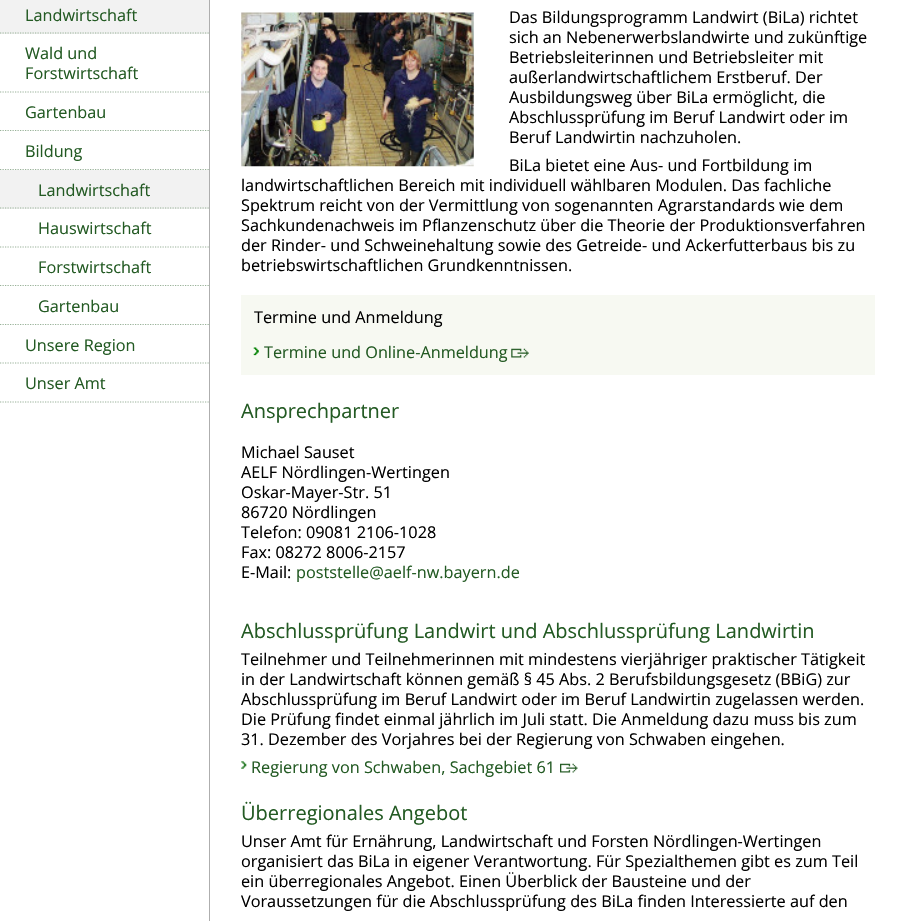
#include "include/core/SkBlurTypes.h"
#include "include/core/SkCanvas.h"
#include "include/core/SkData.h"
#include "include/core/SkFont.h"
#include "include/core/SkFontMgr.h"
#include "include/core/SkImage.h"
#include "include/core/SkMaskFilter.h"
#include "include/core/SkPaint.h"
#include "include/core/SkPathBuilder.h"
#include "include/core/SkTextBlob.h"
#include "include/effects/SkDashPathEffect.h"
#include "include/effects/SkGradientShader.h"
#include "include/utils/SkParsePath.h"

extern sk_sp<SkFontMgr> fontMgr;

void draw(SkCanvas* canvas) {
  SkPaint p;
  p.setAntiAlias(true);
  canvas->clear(SK_ColorWHITE);
  p.setColor(SkColorSetRGB(242, 242, 242));
  canvas->drawRect(SkRect::MakeLTRB(0, 0, 209, 34), p);
  p.setStyle(SkPaint::kStroke_Style);
  p.setStrokeWidth(1.2f);
  p.setColor(SkColorSetRGB(153, 178, 153));
  p.setPathEffect(SkDashPathEffect::Make({{1.25f, 1.25f}}, 0));
  canvas->drawPath(SkPathBuilder().moveTo(0, 33).lineTo(209, 33).detach(), p);
  p.setPathEffect(nullptr);
  p.setPathEffect(SkDashPathEffect::Make({{1.25f, 1.25f}}, 0));
  canvas->drawPath(SkPathBuilder().moveTo(0, 92).lineTo(209, 92).detach(), p);
  p.setPathEffect(nullptr);
  p.setPathEffect(SkDashPathEffect::Make({{1.25f, 1.25f}}, 0));
  canvas->drawPath(SkPathBuilder().moveTo(0, 130.5f).lineTo(209, 130.5f).detach(), p);
  p.setPathEffect(nullptr);
  p.setStyle(SkPaint::kFill_Style);
  p.setColor(SK_ColorWHITE);
  canvas->drawRect(SkRect::MakeLTRB(0, 131, 209, 132), p);
  p.setStyle(SkPaint::kStroke_Style);
  p.setColor(SkColorSetRGB(153, 178, 153));
  p.setPathEffect(SkDashPathEffect::Make({{1.25f, 1.25f}}, 0));
  canvas->drawPath(SkPathBuilder().moveTo(0, 169.5f).lineTo(209, 169.5f).detach(), p);
  p.setPathEffect(nullptr);
  p.setStyle(SkPaint::kFill_Style);
  p.setColor(SkColorSetRGB(242, 242, 242));
  canvas->drawRect(SkRect::MakeLTRB(0, 170, 209, 209), p);
  p.setStyle(SkPaint::kStroke_Style);
  p.setColor(SkColorSetRGB(153, 178, 153));
  p.setPathEffect(SkDashPathEffect::Make({{1.25f, 1.25f}}, 0));
  canvas->drawPath(SkPathBuilder().moveTo(0, 208).lineTo(209, 208).detach(), p);
  p.setPathEffect(nullptr);
  p.setPathEffect(SkDashPathEffect::Make({{1.25f, 1.25f}}, 0));
  canvas->drawPath(SkPathBuilder().moveTo(0, 247).lineTo(209, 247).detach(), p);
  p.setPathEffect(nullptr);
  p.setPathEffect(SkDashPathEffect::Make({{1.25f, 1.25f}}, 0));
  canvas->drawPath(SkPathBuilder().moveTo(0, 285.5f).lineTo(209, 285.5f).detach(), p);
  p.setPathEffect(nullptr);
  p.setPathEffect(SkDashPathEffect::Make({{1.25f, 1.25f}}, 0));
  canvas->drawPath(SkPathBuilder().moveTo(0, 324.5f).lineTo(209, 324.5f).detach(), p);
  p.setPathEffect(nullptr);
  p.setPathEffect(SkDashPathEffect::Make({{1.25f, 1.25f}}, 0));
  canvas->drawPath(SkPathBuilder().moveTo(0, 363).lineTo(209, 363).detach(), p);
  p.setPathEffect(nullptr);
  p.setPathEffect(SkDashPathEffect::Make({{1.25f, 1.25f}}, 0));
  canvas->drawPath(SkPathBuilder().moveTo(0, 402).lineTo(209, 402).detach(), p);
  p.setPathEffect(nullptr);
  p.setStyle(SkPaint::kFill_Style);
  p.setColor(SkColorSetRGB(174, 174, 174));
  canvas->drawRect(SkRect::MakeLTRB(209, 0, 210, 921), p);
  canvas->drawImageRect(SkImages::DeferredFromEncodedData(SkData::MakeFromFileName("images/1.png")), SkRect::MakeLTRB(241, 12, 474, 167), SkSamplingOptions());
  p.setColor(SkColorSetRGB(247, 249, 242));
  canvas->drawRect(SkRect::MakeLTRB(241, 295, 875, 375), p);
  canvas->drawImageRect(SkImages::DeferredFromEncodedData(SkData::MakeFromFileName("images/2.png")), SkRect::MakeLTRB(253, 347, 259, 356), SkSamplingOptions());
  canvas->drawImageRect(SkImages::DeferredFromEncodedData(SkData::MakeFromFileName("images/3.png")), SkRect::MakeLTRB(511, 348, 529, 358), SkSamplingOptions());
  canvas->drawImageRect(SkImages::DeferredFromEncodedData(SkData::MakeFromFileName("images/4.png")), SkRect::MakeLTRB(241, 761, 247, 769), SkSamplingOptions());
  canvas->drawImageRect(SkImages::DeferredFromEncodedData(SkData::MakeFromFileName("images/5.png")), SkRect::MakeLTRB(560, 763, 578, 773), SkSamplingOptions());
  SkFont font1(fontMgr->matchFamilyStyle("Open Sans", SkFontStyle::Normal()), 16.25f);
  font1.setSubpixel(true);
  p.setColor(SkColorSetRGB(35, 90, 35));
  canvas->drawString("Landwirtschaft", 25, 21, font1, p);
  canvas->drawString("Wald und", 25, 59, font1, p);
  canvas->drawString("Forstwirtschaft", 25, 79, font1, p);
  canvas->drawString("Gartenbau", 25, 118, font1, p);
  canvas->drawString("Bildung", 25, 157, font1, p);
  canvas->drawString("Landwirtschaft", 38, 196, font1, p);
  canvas->drawString("Hauswirtschaft", 38, 234, font1, p);
  canvas->drawString("Forstwirtschaft", 38, 273, font1, p);
  canvas->drawString("Gartenbau", 38, 312, font1, p);
  canvas->drawString("Unsere Region", 25, 351, font1, p);
  canvas->drawString("Unser Amt", 25, 389, font1, p);
  p.setColor(SK_ColorBLACK);
  canvas->drawString("Das Bildungsprogramm Landwirt (BiLa) richtet", 509, 23, font1, p);
  canvas->drawString("sich an Nebenerwerbslandwirte und zukünftige", 509, 43, font1, p);
  canvas->drawString("Betriebsleiterinnen und Betriebsleiter mit", 509, 63, font1, p);
  canvas->drawString("außerlandwirtschaftlichem Erstberuf. Der", 509, 83, font1, p);
  canvas->drawString("Ausbildungsweg über BiLa ermöglicht, die", 509, 103, font1, p);
  canvas->drawString("Abschlussprüfung im Beruf Landwirt oder im", 509, 123, font1, p);
  canvas->drawString("Beruf Landwirtin nachzuholen.", 509, 143, font1, p);
  canvas->drawString("BiLa bietet eine Aus- und Fortbildung im", 509, 171, font1, p);
  canvas->drawString("landwirtschaftlichen Bereich mit individuell wählbaren Modulen. Das fachliche", 241, 191, font1, p);
  canvas->drawString("Spektrum reicht von der Vermittlung von sogenannten Agrarstandards wie dem", 241, 211, font1, p);
  canvas->drawString("Sachkundenachweis im Pflanzenschutz über die Theorie der Produktionsverfahren", 241, 231, font1, p);
  canvas->drawString("der Rinder- und Schweinehaltung sowie des Getreide- und Ackerfutterbaus bis zu", 241, 251, font1, p);
  canvas->drawString("betriebswirtschaftlichen Grundkenntnissen.", 241, 271, font1, p);
  canvas->drawString("Termine und Anmeldung", 254, 323, font1, p);
  p.setColor(SkColorSetRGB(35, 90, 35));
  canvas->drawString("Termine und Online-Anmeldung", 264, 358, font1, p);
  SkFont font2(fontMgr->matchFamilyStyle("Open Sans", SkFontStyle::Normal()), 20);
  font2.setSubpixel(true);
  canvas->drawString("Ansprechpartner", 241, 418, font2, p);
  p.setColor(SK_ColorBLACK);
  canvas->drawString("Michael Sauset", 241, 458, font1, p);
  canvas->drawString("AELF Nördlingen-Wertingen", 241, 478, font1, p);
  canvas->drawString("Oskar-Mayer-Str. 51", 241, 498, font1, p);
  canvas->drawString("86720 Nördlingen", 241, 518, font1, p);
  canvas->drawString("Telefon: 09081 2106-1028", 241, 538, font1, p);
  canvas->drawString("Fax: 08272 8006-2157", 241, 558, font1, p);
  canvas->drawString("E-Mail:", 241, 578, font1, p);
  p.setColor(SkColorSetRGB(35, 90, 35));
  canvas->drawString("poststelle@aelf-nw.bayern.de", 296, 578, font1, p);
  canvas->drawString("Abschlussprüfung Landwirt und Abschlussprüfung Landwirtin", 241, 638, font2, p);
  p.setColor(SK_ColorBLACK);
  canvas->drawString("Teilnehmer und Teilnehmerinnen mit mindestens vierjähriger praktischer Tätigkeit", 241, 665, font1, p);
  canvas->drawString("in der Landwirtschaft können gemäß § 45 Abs. 2 Berufsbildungsgesetz (BBiG) zur", 241, 685, font1, p);
  canvas->drawString("Abschlussprüfung im Beruf Landwirt oder im Beruf Landwirtin zugelassen werden.", 241, 705, font1, p);
  canvas->drawString("Die Prüfung findet einmal jährlich im Juli statt. Die Anmeldung dazu muss bis zum", 241, 725, font1, p);
  canvas->drawString("31. Dezember des Vorjahres bei der Regierung von Schwaben eingehen.", 241, 745, font1, p);
  p.setColor(SkColorSetRGB(35, 90, 35));
  canvas->drawString("Regierung von Schwaben, Sachgebiet 61", 251, 773, font1, p);
  canvas->drawString("Überregionales Angebot", 241, 820, font2, p);
  p.setColor(SK_ColorBLACK);
  canvas->drawString("Unser Amt für Ernährung, Landwirtschaft und Forsten Nördlingen-Wertingen", 241, 847, font1, p);
  canvas->drawString("organisiert das BiLa in eigener Verantwortung. Für Spezialthemen gibt es zum Teil", 241, 867, font1, p);
  canvas->drawString("ein überregionales Angebot. Einen Überblick der Bausteine und der", 241, 887, font1, p);
  canvas->drawString("Voraussetzungen für die Abschlussprüfung des BiLa finden Interessierte auf den", 241, 907, font1, p);
}
